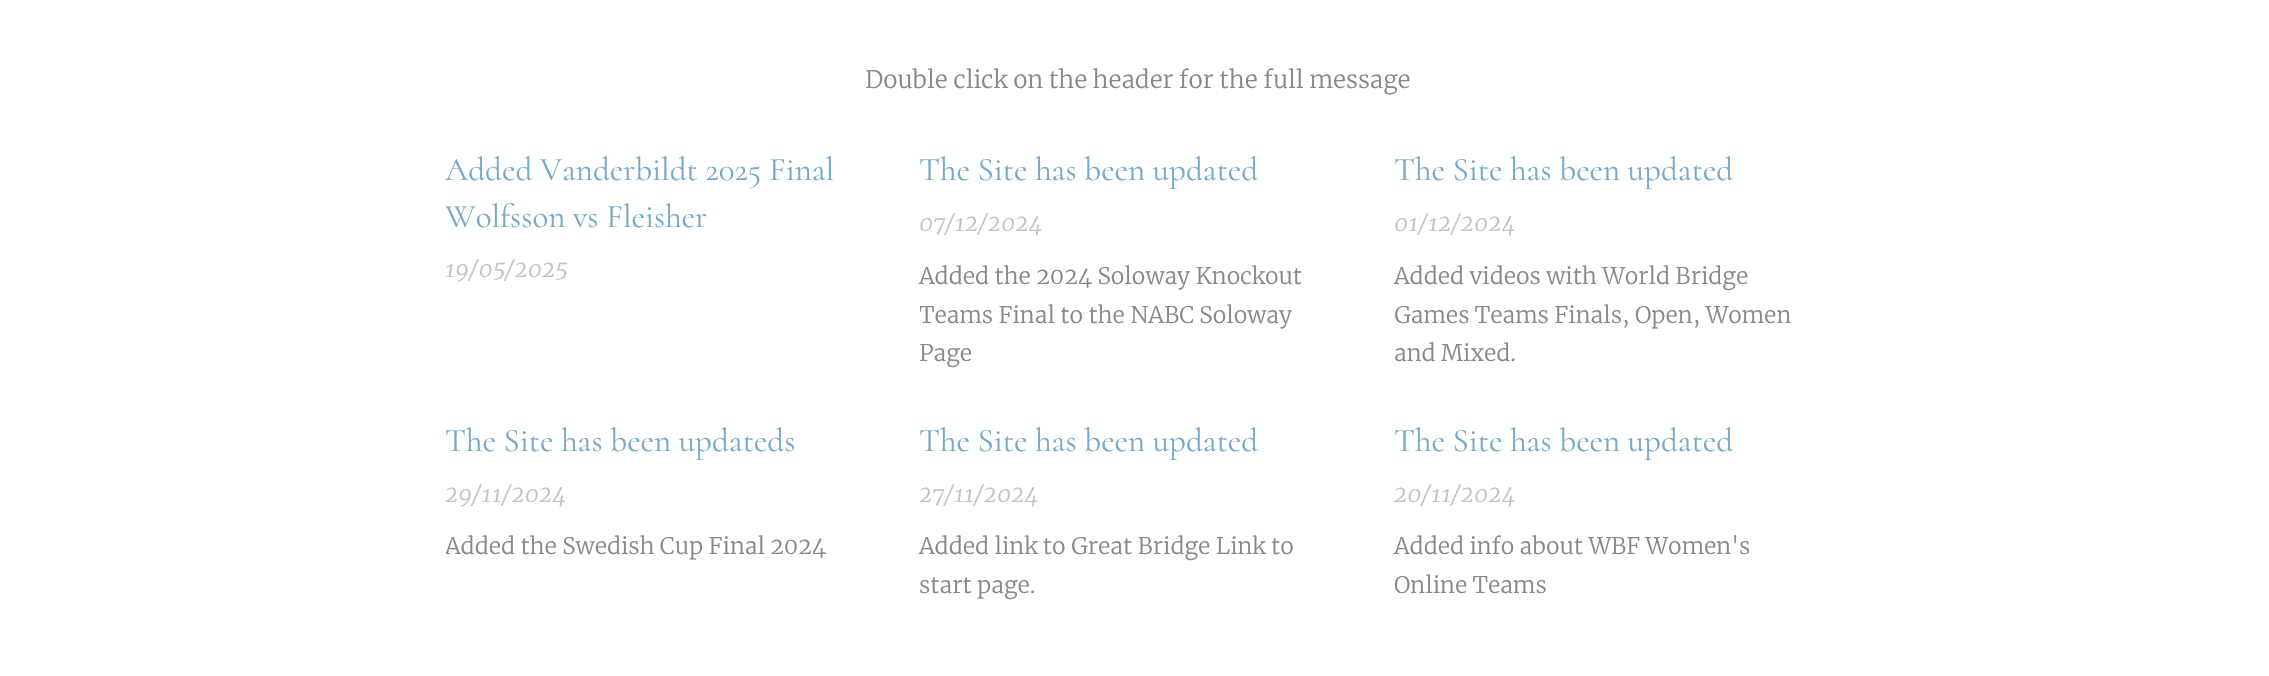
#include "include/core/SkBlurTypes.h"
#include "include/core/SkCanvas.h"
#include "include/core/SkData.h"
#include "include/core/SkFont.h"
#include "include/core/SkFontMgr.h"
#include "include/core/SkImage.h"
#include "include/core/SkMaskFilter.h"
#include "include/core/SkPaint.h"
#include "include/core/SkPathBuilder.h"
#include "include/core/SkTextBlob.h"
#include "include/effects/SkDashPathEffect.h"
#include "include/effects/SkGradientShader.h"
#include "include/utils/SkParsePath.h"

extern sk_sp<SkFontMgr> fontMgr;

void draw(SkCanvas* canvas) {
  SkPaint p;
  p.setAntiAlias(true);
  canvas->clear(SK_ColorWHITE);
  SkFont font1(fontMgr->matchFamilyStyle("Merriweather", SkFontStyle(300, SkFontStyle::kNormal_Width, SkFontStyle::kUpright_Slant)), 24);
  font1.setSubpixel(true);
  p.setColor(SkColorSetRGB(136, 136, 136));
  canvas->drawString("Double click on the header for the full message", 865, 88, font1, p);
  SkFont font2(fontMgr->matchFamilyStyle("Cormorant", SkFontStyle::Normal()), 33);
  font2.setSubpixel(true);
  p.setColor(SkColorSetRGB(119, 169, 202));
  canvas->drawString("Added Vanderbildt 2025 Final", 445, 180, font2, p);
  canvas->drawString("Wolfsson vs Fleisher", 445, 227, font2, p);
  SkFont font3(fontMgr->matchFamilyStyle("Merriweather", SkFontStyle(300, SkFontStyle::kNormal_Width, SkFontStyle::kItalic_Slant)), 22.75f);
  font3.setSubpixel(true);
  p.setColor(SkColorSetRGB(195, 195, 195));
  canvas->drawString("19/05/2025", 445, 277, font3, p);
  p.setColor(SkColorSetRGB(119, 169, 202));
  canvas->drawString("The Site has been updated", 919, 180, font2, p);
  p.setColor(SkColorSetRGB(195, 195, 195));
  canvas->drawString("07/12/2024", 919, 231, font3, p);
  SkFont font4(fontMgr->matchFamilyStyle("Merriweather", SkFontStyle(300, SkFontStyle::kNormal_Width, SkFontStyle::kUpright_Slant)), 22.75f);
  font4.setSubpixel(true);
  p.setColor(SkColorSetRGB(136, 136, 136));
  canvas->drawString("Added the 2024 Soloway Knockout", 919, 284, font4, p);
  canvas->save();
  canvas->clipRect(SkRect::MakeLTRB(920, 257, 1349, 374));
  canvas->drawString("Teams Final to the NABC Soloway", 919, 323, font4, p);
  canvas->restore();
  canvas->drawString("Page", 919, 361, font4, p);
  p.setColor(SkColorSetRGB(119, 169, 202));
  canvas->drawString("The Site has been updated", 1394, 180, font2, p);
  p.setColor(SkColorSetRGB(195, 195, 195));
  canvas->drawString("01/12/2024", 1394, 231, font3, p);
  p.setColor(SkColorSetRGB(136, 136, 136));
  canvas->drawString("Added videos with World Bridge", 1394, 284, font4, p);
  canvas->drawString("Games Teams Finals, Open, Women", 1394, 323, font4, p);
  canvas->drawString("and Mixed.", 1394, 361, font4, p);
  p.setColor(SkColorSetRGB(119, 169, 202));
  canvas->drawString("The Site has been updateds", 445, 451, font2, p);
  p.setColor(SkColorSetRGB(195, 195, 195));
  canvas->drawString("29/11/2024", 445, 502, font3, p);
  canvas->save();
  canvas->clipRect(SkRect::MakeLTRB(446, 528, 875, 566));
  p.setColor(SkColorSetRGB(136, 136, 136));
  canvas->drawString("Added the Swedish Cup Final 2024", 445, 554, font4, p);
  canvas->restore();
  p.setColor(SkColorSetRGB(119, 169, 202));
  canvas->drawString("The Site has been updated", 919, 451, font2, p);
  p.setColor(SkColorSetRGB(195, 195, 195));
  canvas->drawString("27/11/2024", 919, 502, font3, p);
  p.setColor(SkColorSetRGB(136, 136, 136));
  canvas->drawString("Added link to Great Bridge Link to", 919, 554, font4, p);
  canvas->drawString("start page.", 919, 593, font4, p);
  p.setColor(SkColorSetRGB(119, 169, 202));
  canvas->drawString("The Site has been updated", 1394, 451, font2, p);
  p.setColor(SkColorSetRGB(195, 195, 195));
  canvas->drawString("20/11/2024", 1394, 502, font3, p);
  p.setColor(SkColorSetRGB(136, 136, 136));
  canvas->drawString("Added info about WBF Women's", 1394, 554, font4, p);
  canvas->drawString("Online Teams", 1394, 593, font4, p);
}
